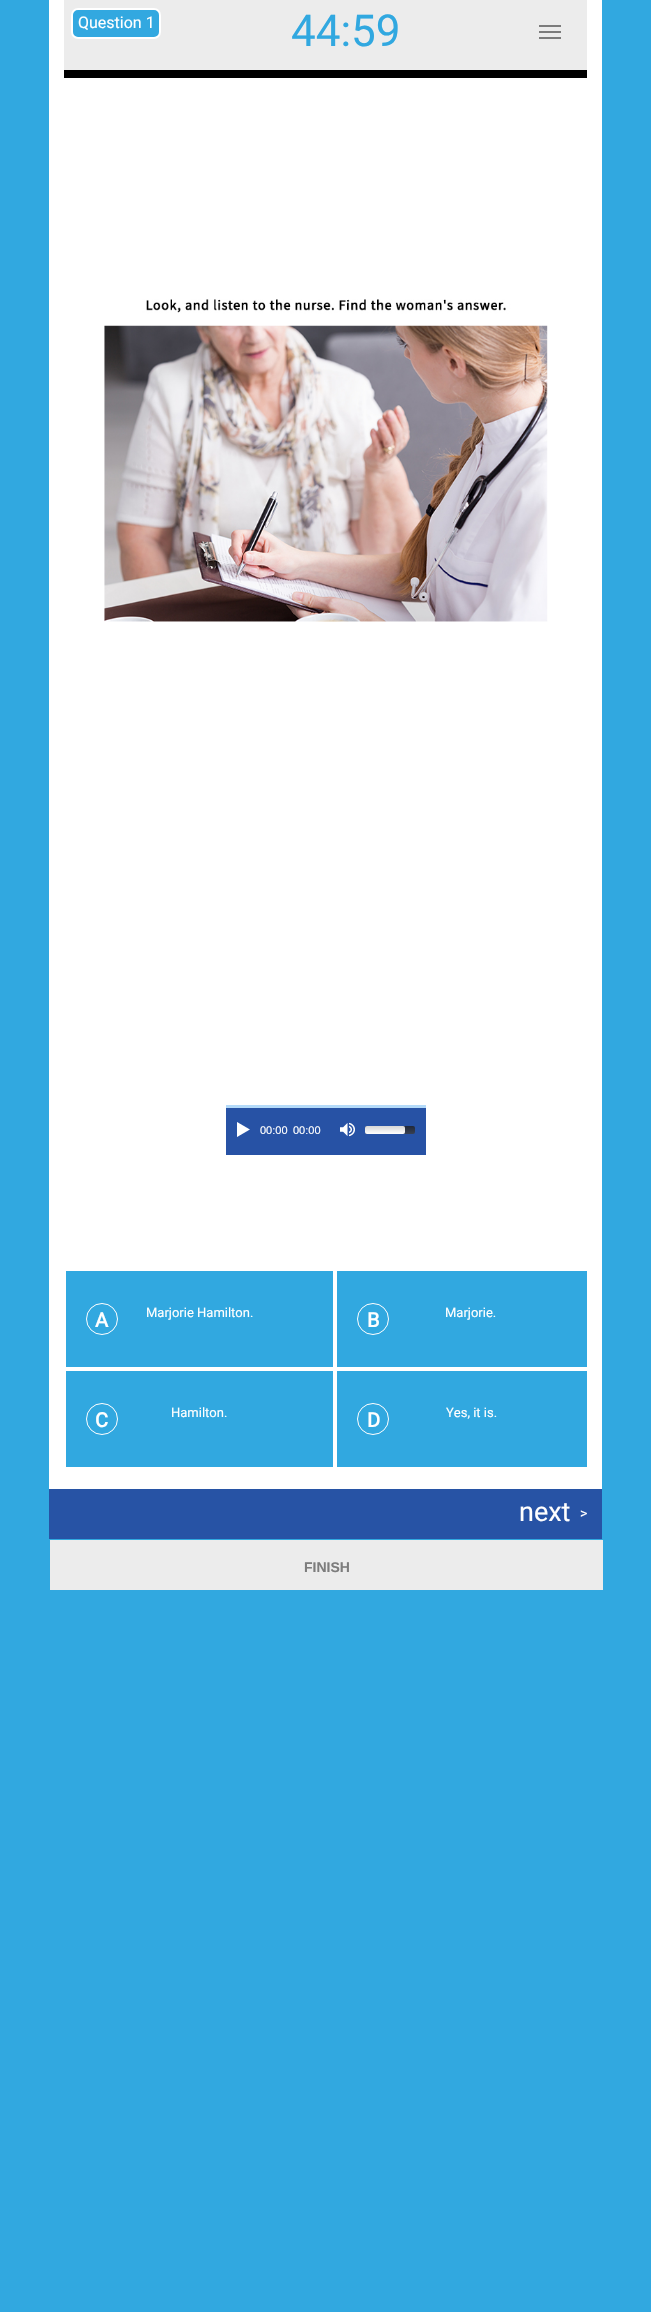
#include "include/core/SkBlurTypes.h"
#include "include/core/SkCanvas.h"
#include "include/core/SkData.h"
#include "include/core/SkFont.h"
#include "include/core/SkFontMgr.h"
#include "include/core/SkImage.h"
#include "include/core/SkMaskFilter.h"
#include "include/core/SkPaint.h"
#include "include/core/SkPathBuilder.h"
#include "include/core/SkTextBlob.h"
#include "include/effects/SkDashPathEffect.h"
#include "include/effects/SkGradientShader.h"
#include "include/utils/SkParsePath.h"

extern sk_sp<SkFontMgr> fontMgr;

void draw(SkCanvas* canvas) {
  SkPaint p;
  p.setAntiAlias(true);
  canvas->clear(SkColorSetRGB(49, 168, 224));
  p.setColor(SK_ColorWHITE);
  canvas->drawRect(SkRect::MakeLTRB(49, 0, 602, 1489), p);
  p.setColor(SkColorSetRGB(236, 236, 236));
  canvas->drawRect(SkRect::MakeLTRB(64, 0, 587, 70), p);
  p.setColor(SkColorSetRGB(124, 124, 124));
  canvas->drawRect(SkRect::MakeLTRB(539, 31, 561, 33), p);
  canvas->drawRect(SkRect::MakeLTRB(539, 25, 561, 27), p);
  canvas->drawRect(SkRect::MakeLTRB(539, 37, 561, 39), p);
  p.setColor(SK_ColorBLACK);
  canvas->drawRect(SkRect::MakeLTRB(64, 70, 587, 78), p);
  p.setColor(SkColorSetRGB(50, 168, 224));
  canvas->drawRoundRect(SkRect::MakeLTRB(72, 9, 160, 38), 6, 6, p);
  p.setStyle(SkPaint::kStroke_Style);
  p.setStrokeWidth(2);
  p.setColor(SK_ColorWHITE);
  canvas->drawRoundRect(SkRect::MakeLTRB(72, 9, 160, 38), 6, 6, p);
  canvas->drawImageRect(SkImages::DeferredFromEncodedData(SkData::MakeFromFileName("images/1.png")), SkRect::MakeLTRB(104, 299, 548, 622), SkSamplingOptions());
  p.setStyle(SkPaint::kFill_Style);
  p.setColor(SkColorSetRGB(39, 82, 165));
  canvas->drawRect(SkRect::MakeLTRB(226, 1108, 426, 1155), p);
  p.setColor(SkColorSetRGB(179, 218, 249));
  canvas->drawRect(SkRect::MakeLTRB(226, 1105, 426, 1108), p);
  canvas->drawImageRect(SkImages::DeferredFromEncodedData(SkData::MakeFromFileName("images/2.png")), SkRect::MakeLTRB(237, 1122, 250, 1137), SkSamplingOptions());
  canvas->drawImageRect(SkImages::DeferredFromEncodedData(SkData::MakeFromFileName("images/3.png")), SkRect::MakeLTRB(340, 1122, 355, 1137), SkSamplingOptions());
  {
    const SkColor colors[] = {SkColorSetRGB(32, 40, 57), SkColorSetRGB(56, 64, 81)};
    const float stops[] = {0, 1};
    const SkPoint ends[] = {{390, 1126}, {390, 1134}};
    p.setShader(SkGradientShader::MakeLinear(ends, colors, stops, 2, SkTileMode::kClamp));
    p.setAlpha(255);
  }
  canvas->drawRoundRect(SkRect::MakeLTRB(365, 1126, 415, 1134), 2, 2, p);
  {
    const SkColor colors[] = {SkColorSetRGB(214, 214, 214), SK_ColorWHITE};
    const float stops[] = {0, 1};
    const SkPoint ends[] = {{385, 1126}, {385, 1134}};
    p.setShader(SkGradientShader::MakeLinear(ends, colors, stops, 2, SkTileMode::kClamp));
    p.setAlpha(255);
  }
  canvas->drawRoundRect(SkRect::MakeLTRB(365, 1126, 405, 1134), 2, 2, p);
  p.setShader(nullptr);
  p.setColor(SkColorSetRGB(49, 168, 224));
  canvas->drawRect(SkRect::MakeLTRB(66, 1271, 333, 1367), p);
  p.setStyle(SkPaint::kStroke_Style);
  p.setStrokeWidth(1);
  p.setColor(SK_ColorWHITE);
  canvas->drawCircle(102, 1319, 15.5f, p);
  p.setStyle(SkPaint::kFill_Style);
  p.setColor(SkColorSetRGB(49, 168, 224));
  canvas->drawRect(SkRect::MakeLTRB(337, 1271, 587, 1367), p);
  p.setStyle(SkPaint::kStroke_Style);
  p.setColor(SK_ColorWHITE);
  canvas->drawCircle(373, 1319, 15.5f, p);
  p.setStyle(SkPaint::kFill_Style);
  p.setColor(SkColorSetRGB(49, 168, 224));
  canvas->drawRect(SkRect::MakeLTRB(66, 1371, 333, 1467), p);
  p.setStyle(SkPaint::kStroke_Style);
  p.setColor(SK_ColorWHITE);
  canvas->drawCircle(102, 1419, 15.5f, p);
  p.setStyle(SkPaint::kFill_Style);
  p.setColor(SkColorSetRGB(49, 168, 224));
  canvas->drawRect(SkRect::MakeLTRB(337, 1371, 587, 1467), p);
  p.setStyle(SkPaint::kStroke_Style);
  p.setColor(SK_ColorWHITE);
  canvas->drawCircle(373, 1419, 15.5f, p);
  p.setStyle(SkPaint::kFill_Style);
  p.setColor(SkColorSetRGB(39, 83, 165));
  canvas->drawRect(SkRect::MakeLTRB(49, 1489, 602, 1539), p);
  p.setColor(SkColorSetRGB(236, 236, 236));
  canvas->drawRect(SkRect::MakeLTRB(50, 1540, 603, 1590), p);
  SkFont font1(fontMgr->matchFamilyStyle("Roboto", SkFontStyle::Normal()), 44);
  font1.setSubpixel(true);
  p.setColor(SkColorSetRGB(49, 168, 224));
  canvas->drawString("44:59", 291, 46, font1, p);
  SkFont font2(fontMgr->matchFamilyStyle("Roboto", SkFontStyle::Normal()), 16);
  font2.setSubpixel(true);
  p.setColor(SK_ColorWHITE);
  canvas->drawString("Question 1", 78, 28, font2, p);
  SkFont font3(fontMgr->matchFamilyStyle("Liberation Sans", SkFontStyle::Normal()), 11);
  font3.setSubpixel(true);
  canvas->drawString("00:00", 260, 1134, font3, p);
  canvas->drawString("00:00", 293, 1134, font3, p);
  SkFont font4(fontMgr->matchFamilyStyle("Roboto", SkFontStyle::Bold()), 20);
  font4.setSubpixel(true);
  canvas->drawString("A", 95, 1327, font4, p);
  SkFont font5(fontMgr->matchFamilyStyle("Roboto", SkFontStyle::Normal()), 13);
  font5.setSubpixel(true);
  canvas->drawString("Marjorie Hamilton.", 146, 1317, font5, p);
  canvas->drawString("B", 367, 1327, font4, p);
  canvas->drawString("Marjorie.", 445, 1317, font5, p);
  canvas->drawString("C", 95, 1427, font4, p);
  canvas->drawString("Hamilton.", 171, 1417, font5, p);
  canvas->drawString("D", 367, 1427, font4, p);
  canvas->drawString("Yes, it is.", 446, 1417, font5, p);
  SkFont font6(fontMgr->matchFamilyStyle("Roboto", SkFontStyle::Normal()), 27);
  font6.setSubpixel(true);
  canvas->drawString("next", 519, 1521, font6, p);
  SkFont font7(fontMgr->matchFamilyStyle("Roboto", SkFontStyle::Normal()), 14);
  font7.setSubpixel(true);
  canvas->drawString(">", 580, 1518, font7, p);
  SkFont font8(fontMgr->matchFamilyStyle("Liberation Sans", SkFontStyle::Bold()), 14);
  font8.setSubpixel(true);
  p.setColor(SkColorSetRGB(125, 125, 125));
  canvas->drawString("FINISH", 304, 1572, font8, p);
}
